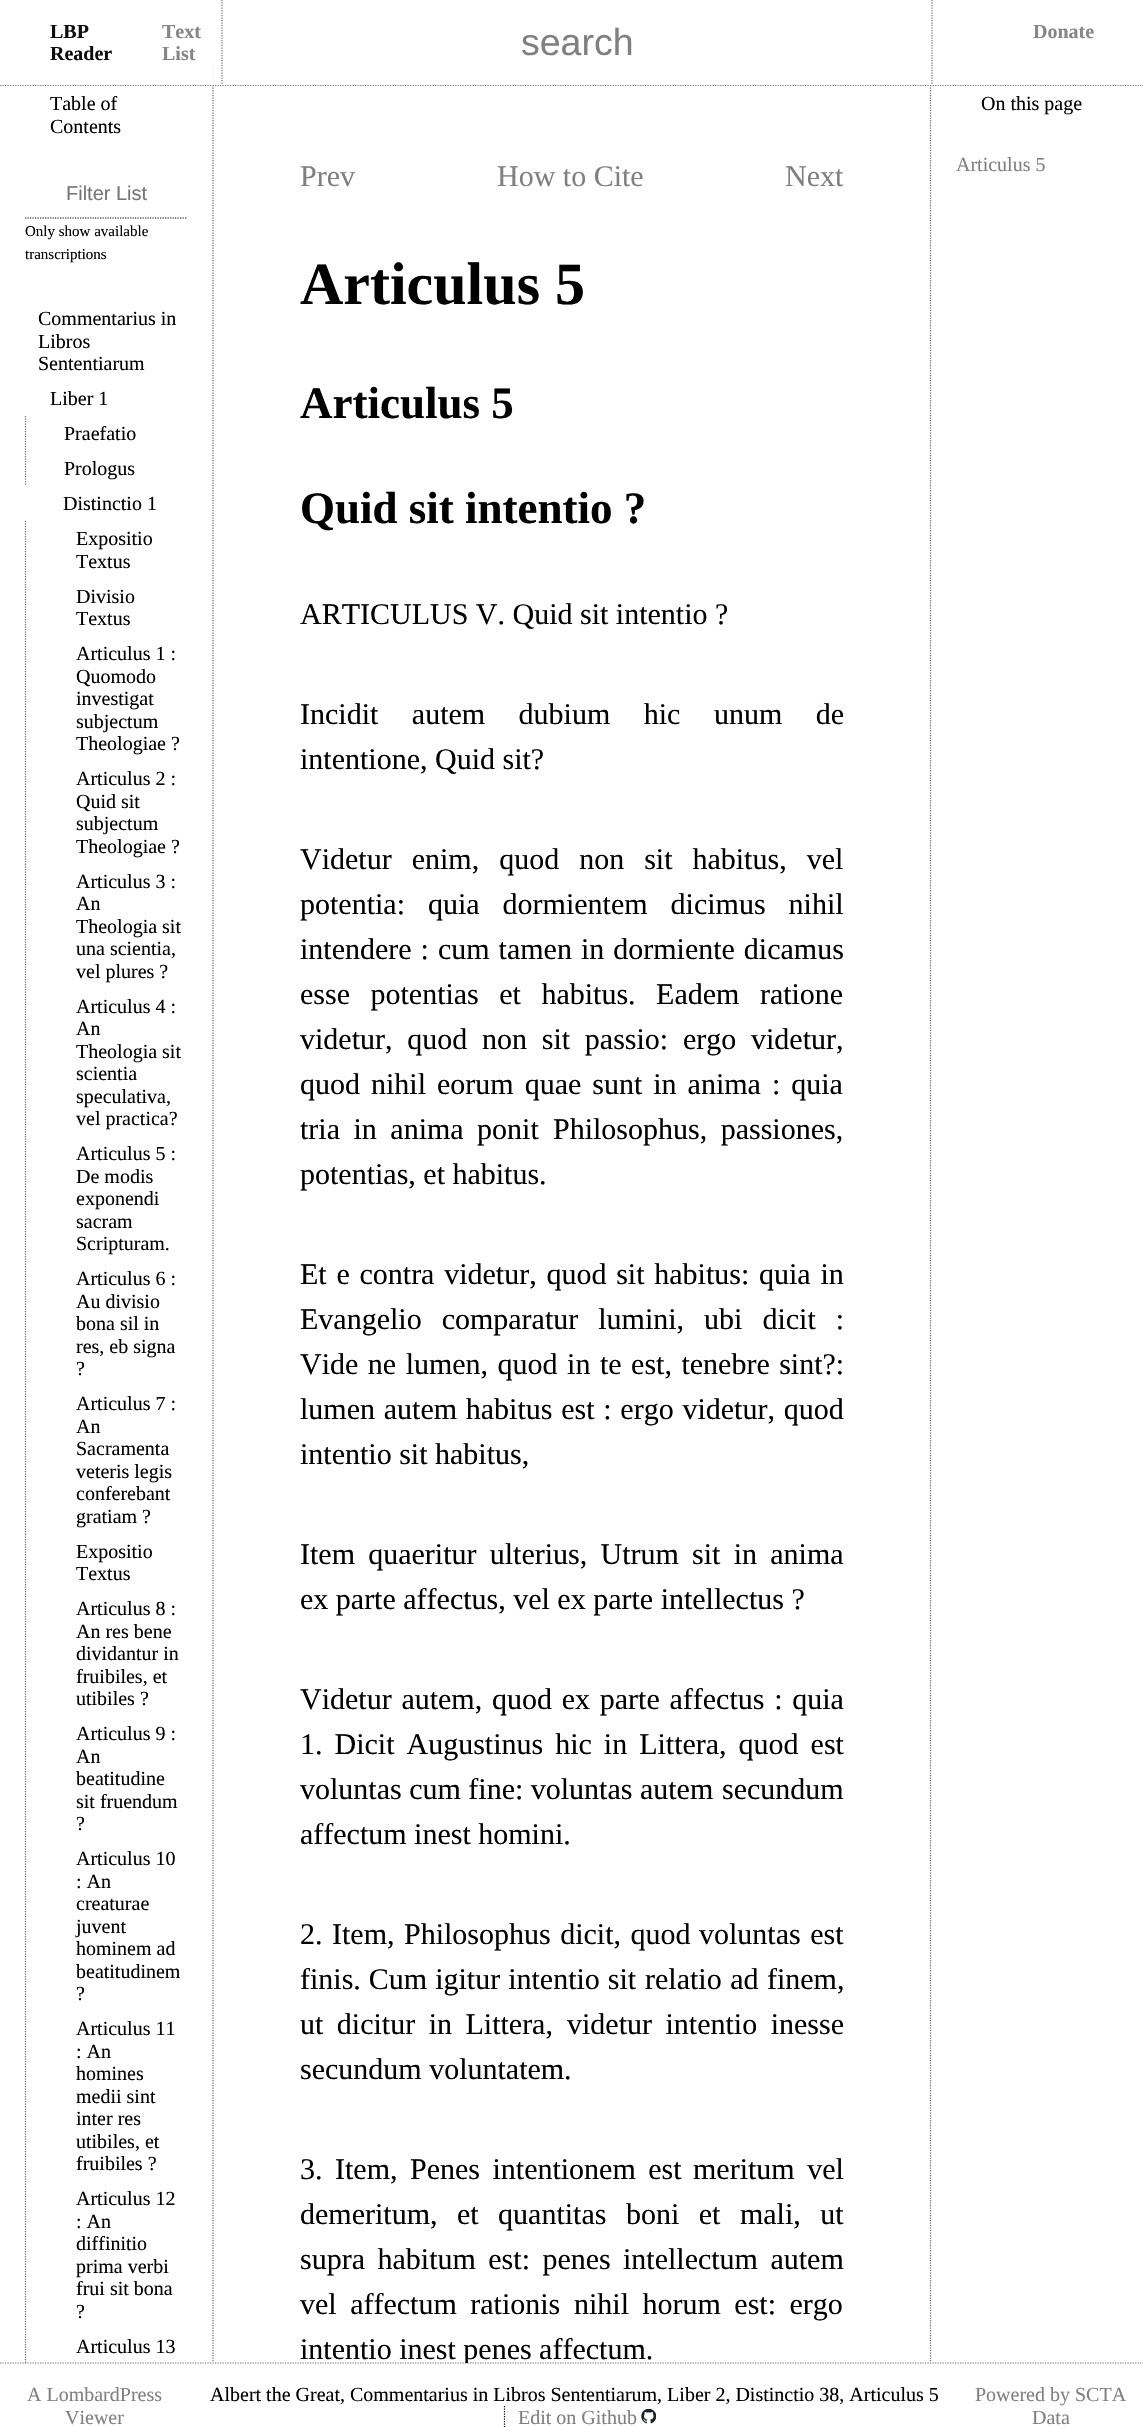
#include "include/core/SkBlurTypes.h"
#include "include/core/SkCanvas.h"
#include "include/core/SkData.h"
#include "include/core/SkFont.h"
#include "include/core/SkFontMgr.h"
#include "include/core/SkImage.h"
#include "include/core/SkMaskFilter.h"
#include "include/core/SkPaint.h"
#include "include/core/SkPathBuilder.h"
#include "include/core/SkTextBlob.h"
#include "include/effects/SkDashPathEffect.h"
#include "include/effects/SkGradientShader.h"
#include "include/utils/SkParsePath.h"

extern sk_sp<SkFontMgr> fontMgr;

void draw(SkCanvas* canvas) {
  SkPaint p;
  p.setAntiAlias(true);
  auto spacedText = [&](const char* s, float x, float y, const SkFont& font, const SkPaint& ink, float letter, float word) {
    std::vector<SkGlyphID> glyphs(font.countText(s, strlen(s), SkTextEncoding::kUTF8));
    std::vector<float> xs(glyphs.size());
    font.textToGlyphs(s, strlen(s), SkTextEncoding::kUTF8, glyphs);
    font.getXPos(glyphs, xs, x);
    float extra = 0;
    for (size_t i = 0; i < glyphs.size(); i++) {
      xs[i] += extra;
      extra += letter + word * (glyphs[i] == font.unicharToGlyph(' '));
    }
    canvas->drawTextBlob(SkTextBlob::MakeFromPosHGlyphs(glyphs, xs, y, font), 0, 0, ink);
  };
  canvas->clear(SK_ColorWHITE);
  p.setStyle(SkPaint::kStroke_Style);
  p.setStrokeWidth(1.2f);
  p.setColor(SkColorSetRGB(109, 109, 109));
  p.setPathEffect(SkDashPathEffect::Make({{1.25f, 1.25f}}, 0));
  canvas->drawPath(SkPathBuilder().moveTo(213, 60).lineTo(213, 2362.5f).detach(), p);
  p.setPathEffect(nullptr);
  p.setPathEffect(SkDashPathEffect::Make({{1.25f, 1.25f}}, 0));
  canvas->drawPath(SkPathBuilder().moveTo(930.5f, 60).lineTo(930.5f, 2362.5f).detach(), p);
  p.setPathEffect(nullptr);
  p.setStyle(SkPaint::kFill_Style);
  p.setColor(SkColorSetARGB(242, 255, 255, 255));
  canvas->drawRect(SkRect::MakeLTRB(212, 60, 932, 86), p);
  p.setStyle(SkPaint::kStroke_Style);
  p.setColor(SkColorSetARGB(138, 0, 0, 0));
  p.setPathEffect(SkDashPathEffect::Make({{1.25f, 1.25f}}, 0));
  canvas->drawPath(SkPathBuilder().moveTo(0, 85.5f).lineTo(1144, 85.5f).detach(), p);
  p.setPathEffect(nullptr);
  p.setColor(SkColorSetRGB(116, 116, 116));
  p.setPathEffect(SkDashPathEffect::Make({{1.25f, 1.25f}}, 0));
  canvas->drawPath(SkPathBuilder().moveTo(222, 0).lineTo(222, 85).detach(), p);
  p.setPathEffect(nullptr);
  p.setPathEffect(SkDashPathEffect::Make({{1.25f, 1.25f}}, 0));
  canvas->drawPath(SkPathBuilder().moveTo(932, 0).lineTo(932, 85).detach(), p);
  p.setPathEffect(nullptr);
  p.setColor(SK_ColorBLACK);
  p.setPathEffect(SkDashPathEffect::Make({{1.25f, 1.25f}}, 0));
  canvas->drawPath(SkPathBuilder().moveTo(25, 218).lineTo(187.5f, 218).detach(), p);
  p.setPathEffect(nullptr);
  p.setColor(SkColorSetRGB(109, 109, 109));
  p.setPathEffect(SkDashPathEffect::Make({{1.25f, 1.25f}}, 0));
  canvas->drawPath(SkPathBuilder().moveTo(25.5f, 416).lineTo(25.5f, 451).detach(), p);
  p.setPathEffect(nullptr);
  p.setPathEffect(SkDashPathEffect::Make({{1.25f, 1.25f}}, 0));
  canvas->drawPath(SkPathBuilder().moveTo(25.5f, 451).lineTo(25.5f, 486).detach(), p);
  p.setPathEffect(nullptr);
  p.setPathEffect(SkDashPathEffect::Make({{1.25f, 1.25f}}, 0));
  canvas->drawPath(SkPathBuilder().moveTo(25.5f, 521).lineTo(25.5f, 579).detach(), p);
  p.setPathEffect(nullptr);
  p.setPathEffect(SkDashPathEffect::Make({{1.25f, 1.25f}}, 0));
  canvas->drawPath(SkPathBuilder().moveTo(25.5f, 579).lineTo(25.5f, 636).detach(), p);
  p.setPathEffect(nullptr);
  p.setPathEffect(SkDashPathEffect::Make({{1.25f, 1.25f}}, 0));
  canvas->drawPath(SkPathBuilder().moveTo(25.5f, 636).lineTo(25.5f, 761).detach(), p);
  p.setPathEffect(nullptr);
  p.setPathEffect(SkDashPathEffect::Make({{1.25f, 1.25f}}, 0));
  canvas->drawPath(SkPathBuilder().moveTo(25.5f, 761).lineTo(25.5f, 864).detach(), p);
  p.setPathEffect(nullptr);
  p.setPathEffect(SkDashPathEffect::Make({{1.25f, 1.25f}}, 0));
  canvas->drawPath(SkPathBuilder().moveTo(25.5f, 864).lineTo(25.5f, 989).detach(), p);
  p.setPathEffect(nullptr);
  p.setPathEffect(SkDashPathEffect::Make({{1.25f, 1.25f}}, 0));
  canvas->drawPath(SkPathBuilder().moveTo(25.5f, 989).lineTo(25.5f, 1136).detach(), p);
  p.setPathEffect(nullptr);
  p.setPathEffect(SkDashPathEffect::Make({{1.25f, 1.25f}}, 0));
  canvas->drawPath(SkPathBuilder().moveTo(25.5f, 1136).lineTo(25.5f, 1261).detach(), p);
  p.setPathEffect(nullptr);
  p.setPathEffect(SkDashPathEffect::Make({{1.25f, 1.25f}}, 0));
  canvas->drawPath(SkPathBuilder().moveTo(25.5f, 1261).lineTo(25.5f, 1386).detach(), p);
  p.setPathEffect(nullptr);
  p.setPathEffect(SkDashPathEffect::Make({{1.25f, 1.25f}}, 0));
  canvas->drawPath(SkPathBuilder().moveTo(25.5f, 1386).lineTo(25.5f, 1534).detach(), p);
  p.setPathEffect(nullptr);
  p.setPathEffect(SkDashPathEffect::Make({{1.25f, 1.25f}}, 0));
  canvas->drawPath(SkPathBuilder().moveTo(25.5f, 1534).lineTo(25.5f, 1591).detach(), p);
  p.setPathEffect(nullptr);
  p.setPathEffect(SkDashPathEffect::Make({{1.25f, 1.25f}}, 0));
  canvas->drawPath(SkPathBuilder().moveTo(25.5f, 1591).lineTo(25.5f, 1716).detach(), p);
  p.setPathEffect(nullptr);
  p.setPathEffect(SkDashPathEffect::Make({{1.25f, 1.25f}}, 0));
  canvas->drawPath(SkPathBuilder().moveTo(25.5f, 1716).lineTo(25.5f, 1841).detach(), p);
  p.setPathEffect(nullptr);
  p.setPathEffect(SkDashPathEffect::Make({{1.25f, 1.25f}}, 0));
  canvas->drawPath(SkPathBuilder().moveTo(25.5f, 1841).lineTo(25.5f, 2011).detach(), p);
  p.setPathEffect(nullptr);
  p.setPathEffect(SkDashPathEffect::Make({{1.25f, 1.25f}}, 0));
  canvas->drawPath(SkPathBuilder().moveTo(25.5f, 2011).lineTo(25.5f, 2181).detach(), p);
  p.setPathEffect(nullptr);
  p.setPathEffect(SkDashPathEffect::Make({{1.25f, 1.25f}}, 0));
  canvas->drawPath(SkPathBuilder().moveTo(25.5f, 2181).lineTo(25.5f, 2329).detach(), p);
  p.setPathEffect(nullptr);
  canvas->save();
  canvas->clipRect(SkRect::MakeLTRB(0, 60, 213, 2363));
  p.setPathEffect(SkDashPathEffect::Make({{1.25f, 1.25f}}, 0));
  canvas->drawPath(SkPathBuilder().moveTo(25.5f, 2329).lineTo(25.5f, 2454).detach(), p);
  p.setPathEffect(nullptr);
  canvas->restore();
  p.setColor(SkColorSetRGB(3, 3, 3));
  p.setPathEffect(SkDashPathEffect::Make({{1.25f, 1.25f}}, 0));
  canvas->drawPath(SkPathBuilder().moveTo(504.5f, 2406).lineTo(504.5f, 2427.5f).detach(), p);
  p.setPathEffect(nullptr);
  canvas->drawImageRect(SkImages::DeferredFromEncodedData(SkData::MakeFromFileName("images/1.png")), SkRect::MakeLTRB(641, 2409, 656, 2424), SkSamplingOptions());
  SkFont font1(fontMgr->matchFamilyStyle("Liberation Serif", SkFontStyle::Bold()), 20);
  font1.setSubpixel(true);
  p.setStyle(SkPaint::kFill_Style);
  p.setColor(SkColorSetRGB(13, 13, 13));
  canvas->drawString("LBP", 50, 38, font1, p);
  canvas->drawString("Reader", 50, 60, font1, p);
  p.setColor(SkColorSetRGB(134, 134, 134));
  canvas->drawString("Text", 162, 38, font1, p);
  canvas->drawString("List", 162, 60, font1, p);
  SkFont font2(fontMgr->matchFamilyStyle("Liberation Sans", SkFontStyle::Normal()), 37.5f);
  font2.setSubpixel(true);
  p.setColor(SkColorSetRGB(128, 128, 128));
  canvas->drawString("search", 521, 55, font2, p);
  p.setColor(SkColorSetRGB(134, 134, 134));
  canvas->drawString("Donate", 1033, 38, font1, p);
  SkFont font3(fontMgr->matchFamilyStyle("Liberation Serif", SkFontStyle::Normal()), 20);
  font3.setSubpixel(true);
  p.setColor(SK_ColorBLACK);
  canvas->drawString("Table of", 50, 110, font3, p);
  canvas->drawString("Contents", 50, 133, font3, p);
  SkFont font4(fontMgr->matchFamilyStyle("Liberation Sans", SkFontStyle::Normal()), 20);
  font4.setSubpixel(true);
  p.setColor(SkColorSetRGB(117, 117, 117));
  canvas->drawString("Filter List", 66, 200, font4, p);
  SkFont font5(fontMgr->matchFamilyStyle("Liberation Serif", SkFontStyle::Normal()), 15);
  font5.setSubpixel(true);
  p.setColor(SK_ColorBLACK);
  canvas->drawString("Only show available", 25, 236, font5, p);
  canvas->drawString("transcriptions", 25, 259, font5, p);
  canvas->drawString("Commentarius in", 38, 325, font3, p);
  canvas->drawString("Libros", 38, 348, font3, p);
  canvas->drawString("Sententiarum", 38, 370, font3, p);
  canvas->drawString("Liber 1", 50, 405, font3, p);
  canvas->drawString("Praefatio", 64, 440, font3, p);
  canvas->drawString("Prologus", 64, 475, font3, p);
  canvas->drawString("Distinctio 1", 63, 510, font3, p);
  canvas->drawString("Expositio", 76, 545, font3, p);
  canvas->drawString("Textus", 76, 568, font3, p);
  canvas->drawString("Divisio", 76, 603, font3, p);
  canvas->drawString("Textus", 76, 625, font3, p);
  canvas->drawString("Articulus 1 :", 76, 660, font3, p);
  canvas->drawString("Quomodo", 76, 683, font3, p);
  canvas->drawString("investigat", 76, 705, font3, p);
  canvas->drawString("subjectum", 76, 728, font3, p);
  canvas->drawString("Theologiae ?", 76, 750, font3, p);
  canvas->drawString("Articulus 2 :", 76, 785, font3, p);
  canvas->drawString("Quid sit", 76, 808, font3, p);
  canvas->drawString("subjectum", 76, 830, font3, p);
  canvas->drawString("Theologiae ?", 76, 853, font3, p);
  canvas->drawString("Articulus 3 :", 76, 888, font3, p);
  canvas->drawString("An", 76, 910, font3, p);
  canvas->drawString("Theologia sit", 76, 933, font3, p);
  canvas->drawString("una scientia,", 76, 955, font3, p);
  canvas->drawString("vel plures ?", 76, 978, font3, p);
  canvas->drawString("Articulus 4 :", 76, 1013, font3, p);
  canvas->drawString("An", 76, 1035, font3, p);
  canvas->drawString("Theologia sit", 76, 1058, font3, p);
  canvas->drawString("scientia", 76, 1080, font3, p);
  canvas->drawString("speculativa,", 76, 1103, font3, p);
  canvas->drawString("vel practica?", 76, 1125, font3, p);
  canvas->drawString("Articulus 5 :", 76, 1160, font3, p);
  canvas->drawString("De modis", 76, 1183, font3, p);
  canvas->drawString("exponendi", 76, 1205, font3, p);
  canvas->drawString("sacram", 76, 1228, font3, p);
  canvas->drawString("Scripturam.", 76, 1250, font3, p);
  canvas->drawString("Articulus 6 :", 76, 1285, font3, p);
  canvas->drawString("Au divisio", 76, 1308, font3, p);
  canvas->drawString("bona sil in", 76, 1330, font3, p);
  canvas->drawString("res, eb signa", 76, 1353, font3, p);
  canvas->drawString("?", 76, 1375, font3, p);
  canvas->drawString("Articulus 7 :", 76, 1410, font3, p);
  canvas->drawString("An", 76, 1433, font3, p);
  canvas->drawString("Sacramenta", 76, 1455, font3, p);
  canvas->drawString("veteris legis", 76, 1478, font3, p);
  canvas->drawString("conferebant", 76, 1500, font3, p);
  canvas->drawString("gratiam ?", 76, 1523, font3, p);
  canvas->drawString("Expositio", 76, 1558, font3, p);
  canvas->drawString("Textus", 76, 1580, font3, p);
  canvas->drawString("Articulus 8 :", 76, 1615, font3, p);
  canvas->drawString("An res bene", 76, 1638, font3, p);
  canvas->drawString("dividantur in", 76, 1660, font3, p);
  canvas->drawString("fruibiles, et", 76, 1683, font3, p);
  canvas->drawString("utibiles ?", 76, 1705, font3, p);
  canvas->drawString("Articulus 9 :", 76, 1740, font3, p);
  canvas->drawString("An", 76, 1763, font3, p);
  canvas->drawString("beatitudine", 76, 1785, font3, p);
  canvas->drawString("sit fruendum", 76, 1808, font3, p);
  canvas->drawString("?", 76, 1830, font3, p);
  canvas->drawString("Articulus 10", 76, 1865, font3, p);
  canvas->drawString(": An", 76, 1888, font3, p);
  canvas->drawString("creaturae", 76, 1910, font3, p);
  canvas->drawString("juvent", 76, 1933, font3, p);
  canvas->drawString("hominem ad", 76, 1955, font3, p);
  canvas->drawString("beatitudinem", 76, 1978, font3, p);
  canvas->drawString("?", 76, 2000, font3, p);
  canvas->drawString("Articulus 11", 76, 2035, font3, p);
  canvas->drawString(": An", 76, 2058, font3, p);
  canvas->drawString("homines", 76, 2080, font3, p);
  canvas->drawString("medii sint", 76, 2103, font3, p);
  canvas->drawString("inter res", 76, 2125, font3, p);
  canvas->drawString("utibiles, et", 76, 2148, font3, p);
  canvas->drawString("fruibiles ?", 76, 2170, font3, p);
  canvas->drawString("Articulus 12", 76, 2205, font3, p);
  canvas->drawString(": An", 76, 2228, font3, p);
  canvas->drawString("diffinitio", 76, 2250, font3, p);
  canvas->drawString("prima verbi", 76, 2273, font3, p);
  canvas->drawString("frui sit bona", 76, 2295, font3, p);
  canvas->drawString("?", 76, 2318, font3, p);
  canvas->drawString("Articulus 13", 76, 2353, font3, p);
  canvas->drawString("On this page", 981, 110, font3, p);
  p.setColor(SkColorSetRGB(128, 128, 128));
  canvas->drawString("Articulus 5", 956, 171, font3, p);
  SkFont font6(fontMgr->matchFamilyStyle("Liberation Serif", SkFontStyle::Normal()), 30);
  font6.setSubpixel(true);
  canvas->drawString("Prev", 300, 186, font6, p);
  canvas->drawString("How to Cite", 497, 186, font6, p);
  canvas->drawString("Next", 785, 186, font6, p);
  SkFont font7(fontMgr->matchFamilyStyle("Liberation Serif", SkFontStyle::Bold()), 60);
  font7.setSubpixel(true);
  p.setColor(SK_ColorBLACK);
  canvas->drawString("Articulus 5", 300, 304, font7, p);
  SkFont font8(fontMgr->matchFamilyStyle("Liberation Serif", SkFontStyle::Bold()), 45);
  font8.setSubpixel(true);
  canvas->drawString("Articulus 5", 300, 418, font8, p);
  canvas->drawString("Quid sit intentio ?", 300, 523, font8, p);
  canvas->drawString("ARTICULUS V. Quid sit intentio ?", 300, 624, font6, p);
  spacedText("Incidit autem dubium hic unum de", 300, 724, font6, p, 0, 26);
  canvas->drawString("intentione, Quid sit?", 300, 769, font6, p);
  spacedText("Videtur enim, quod non sit habitus, vel", 300, 869, font6, p, 0, 12.5f);
  spacedText("potentia: quia dormientem dicimus nihil", 300, 914, font6, p, 0, 15.5f);
  spacedText("intendere : cum tamen in dormiente dicamus", 300, 959, font6, p, 0, 1.5f);
  spacedText("esse potentias et habitus. Eadem ratione", 300, 1004, font6, p, 0, 13);
  spacedText("videtur, quod non sit passio: ergo", 300, 1049, font6, p, 0, 7.25f);
  canvas->drawString("videtur,", 751, 1049, font6, p);
  spacedText("quod nihil eorum quae sunt in anima : quia", 300, 1094, font6, p, 0, 3.5f);
  spacedText("tria in anima ponit", 300, 1139, font6, p, 0, 6);
  spacedText("Philosophus, passiones,", 553, 1139, font6, p, 0, 6);
  canvas->drawString("potentias, et habitus.", 300, 1184, font6, p);
  spacedText("Et e contra videtur, quod sit habitus: quia in", 300, 1284, font6, p, 0, 2.25f);
  spacedText("Evangelio comparatur lumini, ubi dicit :", 300, 1329, font6, p, 0, 12.5f);
  spacedText("Vide ne lumen, quod in te est, tenebre sint?:", 300, 1374, font6, p, 0, 2);
  spacedText("lumen autem habitus est : ergo videtur, quod", 300, 1419, font6, p, 0, 1.25f);
  canvas->drawString("intentio sit habitus,", 300, 1464, font6, p);
  spacedText("Item quaeritur ulterius, Utrum sit in anima", 300, 1564, font6, p, 0, 5.75f);
  canvas->drawString("ex parte affectus, vel ex parte intellectus ?", 300, 1609, font6, p);
  spacedText("Videtur autem, quod ex parte affectus : quia", 300, 1709, font6, p, 0, 2.25f);
  spacedText("1. Dicit Augustinus hic in Littera, quod est", 300, 1754, font6, p, 0, 4.5f);
  canvas->drawString("voluntas cum fine: voluntas autem", 300, 1799, font6, p);
  canvas->drawString("secundum", 722, 1799, font6, p);
  canvas->drawString("affectum inest homini.", 300, 1844, font6, p);
  spacedText("2. Item, Philosophus dicit, quod", 300, 1944, font6, p, 0, 2);
  spacedText("voluntas est", 699, 1944, font6, p, 0, 2);
  spacedText("finis. Cum igitur intentio sit", 300, 1989, font6, p, 0, 0.5f);
  spacedText("relatio ad finem,", 645, 1989, font6, p, 0, 1);
  spacedText("ut dicitur in Littera,", 300, 2034, font6, p, 0, 6);
  spacedText("videtur intentio inesse", 567, 2034, font6, p, 0, 6);
  canvas->drawString("secundum voluntatem.", 300, 2079, font6, p);
  spacedText("3. Item, Penes intentionem est", 300, 2179, font6, p, 0, 5);
  spacedText("meritum vel", 693, 2179, font6, p, 0, 5);
  spacedText("demeritum, et quantitas boni et mali, ut", 300, 2224, font6, p, 0, 12);
  spacedText("supra habitum est: penes", 300, 2269, font6, p, 0, 5);
  spacedText("intellectum autem", 623, 2269, font6, p, 0, 5);
  spacedText("vel affectum rationis", 300, 2314, font6, p, 0, 6);
  spacedText("nihil horum est: ergo", 574, 2314, font6, p, 0, 6);
  canvas->save();
  canvas->clipRect(SkRect::MakeLTRB(214, 60, 930, 2363));
  canvas->drawString("intentio inest penes affectum.", 300, 2359, font6, p);
  canvas->restore();
  p.setStyle(SkPaint::kStroke_Style);
  p.setColor(SkColorSetARGB(145, 0, 0, 0));
  p.setPathEffect(SkDashPathEffect::Make({{1.25f, 1.25f}}, 0));
  canvas->drawPath(SkPathBuilder().moveTo(0, 2363).lineTo(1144, 2363).detach(), p);
  p.setPathEffect(nullptr);
  p.setStyle(SkPaint::kFill_Style);
  p.setColor(SkColorSetRGB(128, 128, 128));
  canvas->drawString("A LombardPress", 27, 2401, font3, p);
  canvas->drawString("Viewer", 65, 2424, font3, p);
  p.setColor(SK_ColorBLACK);
  canvas->drawString("Albert the Great, Commentarius in Libros Sententiarum, Liber 2, Distinctio 38, Articulus 5", 210, 2401, font3, p);
  p.setColor(SkColorSetRGB(128, 128, 128));
  canvas->drawString("Edit on Github", 518, 2424, font3, p);
  canvas->drawString("Powered by SCTA", 975, 2401, font3, p);
  canvas->drawString("Data", 1032, 2424, font3, p);
}
